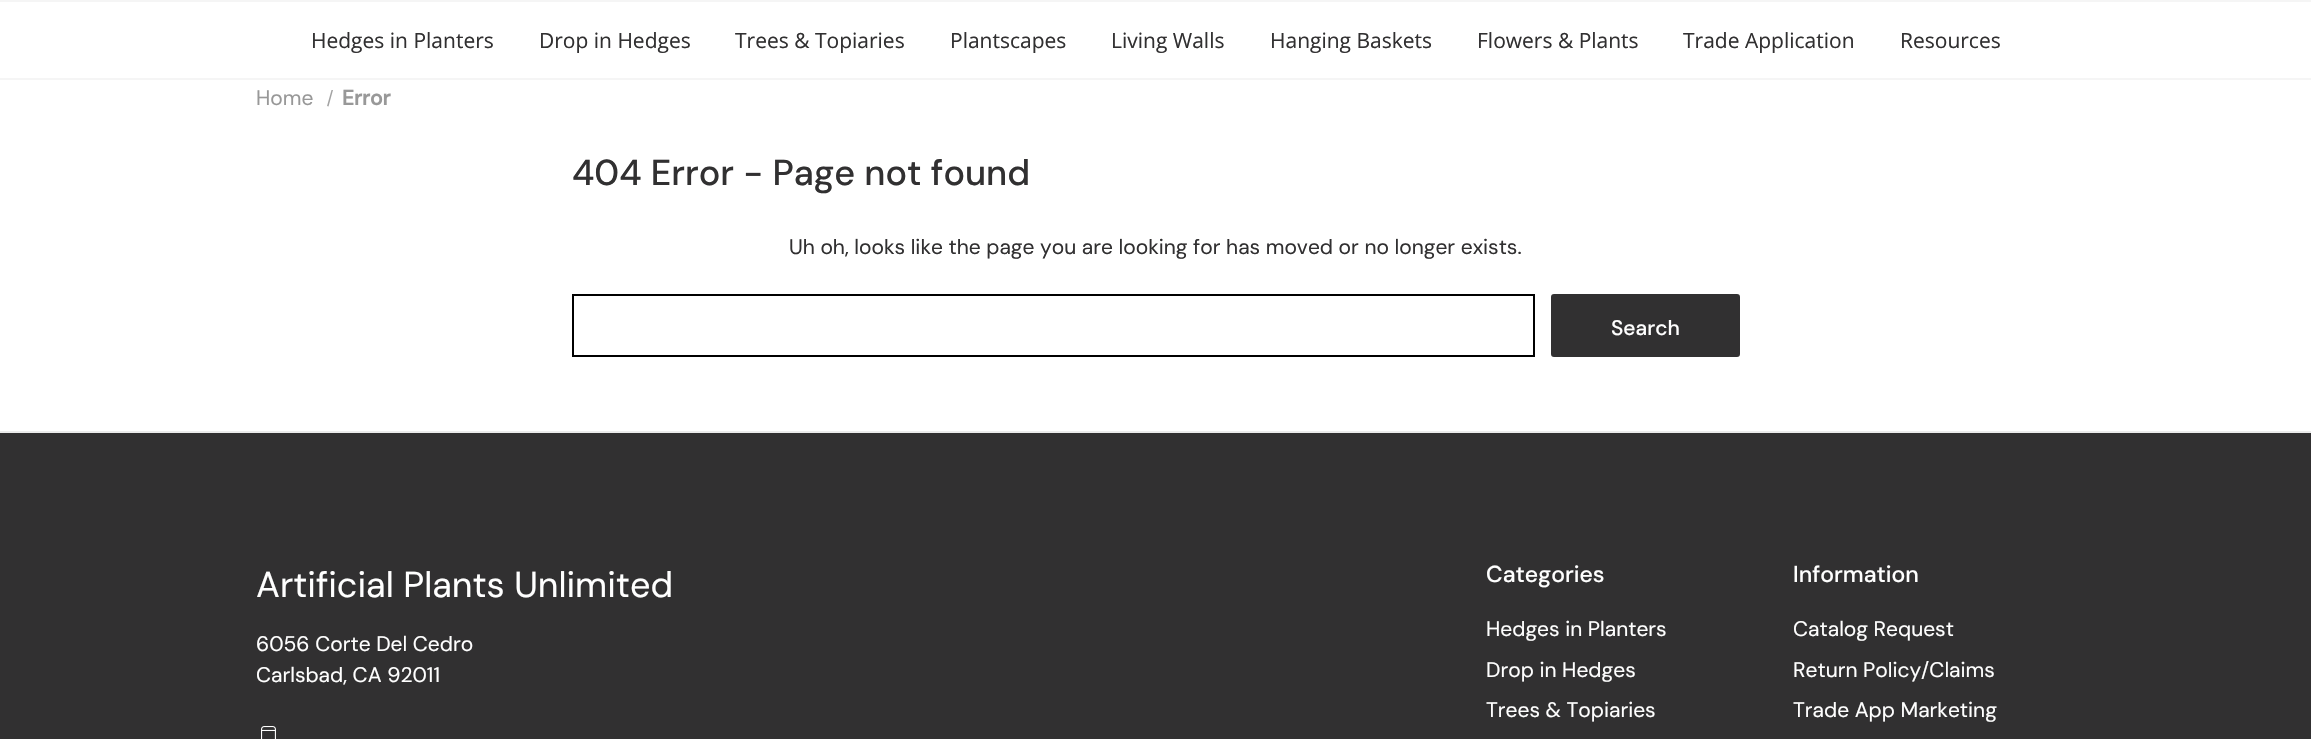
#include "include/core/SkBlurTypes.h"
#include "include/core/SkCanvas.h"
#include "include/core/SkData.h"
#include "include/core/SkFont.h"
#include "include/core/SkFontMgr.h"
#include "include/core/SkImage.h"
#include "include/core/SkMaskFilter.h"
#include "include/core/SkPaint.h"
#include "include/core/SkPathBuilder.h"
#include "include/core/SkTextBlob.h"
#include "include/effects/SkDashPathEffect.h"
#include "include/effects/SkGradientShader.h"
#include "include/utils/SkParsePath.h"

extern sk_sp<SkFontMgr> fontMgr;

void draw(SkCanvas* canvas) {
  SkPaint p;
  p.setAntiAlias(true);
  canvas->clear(SK_ColorWHITE);
  p.setColor(SkColorSetRGB(245, 245, 245));
  canvas->drawRect(SkRect::MakeLTRB(0, 0, 2311, 2), p);
  canvas->drawRect(SkRect::MakeLTRB(0, 78, 2311, 80), p);
  p.setColor(SkColorSetRGB(163, 163, 163));
  canvas->drawPath(SkPathBuilder().moveTo(331.5f, 90).lineTo(333, 90).lineTo(328.5f, 106.5f).lineTo(327, 106).close().detach(), p);
  p.setStyle(SkPaint::kStroke_Style);
  p.setStrokeWidth(2);
  p.setColor(SK_ColorBLACK);
  canvas->drawRect(SkRect::MakeLTRB(573, 295, 1534, 356), p);
  p.setStyle(SkPaint::kFill_Style);
  p.setColor(SkColorSetRGB(49, 48, 49));
  canvas->drawRoundRect(SkRect::MakeLTRB(1552, 295, 1739, 356), 2, 2, p);
  p.setStyle(SkPaint::kStroke_Style);
  canvas->drawRoundRect(SkRect::MakeLTRB(1552, 295, 1739, 356), 2, 2, p);
  p.setStyle(SkPaint::kFill_Style);
  canvas->drawRect(SkRect::MakeLTRB(0, 433, 2311, 739), p);
  p.setColor(SkColorSetRGB(235, 235, 235));
  canvas->drawRect(SkRect::MakeLTRB(0, 431, 2311, 433), p);
  canvas->drawImageRect(SkImages::DeferredFromEncodedData(SkData::MakeFromFileName("images/1.png")), SkRect::MakeLTRB(261, 726, 276, 739), SkSamplingOptions());
  SkFont font1(fontMgr->matchFamilyStyle("Open Sans", SkFontStyle::Normal()), 21);
  font1.setSubpixel(true);
  p.setColor(SkColorSetRGB(49, 48, 49));
  canvas->drawString("Hedges in Planters", 311, 48, font1, p);
  canvas->drawString("Drop in Hedges", 539, 48, font1, p);
  canvas->drawString("Trees & Topiaries", 735, 48, font1, p);
  canvas->drawString("Plantscapes", 950, 48, font1, p);
  canvas->drawString("Living Walls", 1111, 48, font1, p);
  canvas->drawString("Hanging Baskets", 1270, 48, font1, p);
  canvas->drawString("Flowers & Plants", 1477, 48, font1, p);
  canvas->drawString("Trade Application", 1683, 48, font1, p);
  canvas->drawString("Resources", 1900, 48, font1, p);
  SkFont font2(fontMgr->matchFamilyStyle("DM Sans", SkFontStyle::Normal()), 21);
  font2.setSubpixel(true);
  p.setColor(SkColorSetRGB(152, 152, 152));
  canvas->drawString("Home", 256, 105, font2, p);
  SkFont font3(fontMgr->matchFamilyStyle("DM Sans", SkFontStyle::Bold()), 21);
  font3.setSubpixel(true);
  canvas->drawString("Error", 342, 105, font3, p);
  SkFont font4(fontMgr->matchFamilyStyle("DM Sans", SkFontStyle(500, SkFontStyle::kNormal_Width, SkFontStyle::kUpright_Slant)), 36);
  font4.setSubpixel(true);
  p.setColor(SkColorSetRGB(49, 48, 49));
  canvas->drawString("404 Error - Page not found", 572, 185, font4, p);
  canvas->drawString("Uh oh, looks like the page you are looking for has moved or no longer exists.", 789, 254, font2, p);
  SkFont font5(fontMgr->matchFamilyStyle("DM Sans", SkFontStyle(500, SkFontStyle::kNormal_Width, SkFontStyle::kUpright_Slant)), 21);
  font5.setSubpixel(true);
  p.setColor(SK_ColorWHITE);
  canvas->drawString("Search", 1611, 335, font5, p);
  SkFont font6(fontMgr->matchFamilyStyle("DM Sans", SkFontStyle::Normal()), 36);
  font6.setSubpixel(true);
  canvas->drawString("Artificial Plants Unlimited", 256, 597, font6, p);
  canvas->drawString("6056 Corte Del Cedro", 256, 651, font2, p);
  canvas->drawString("Carlsbad, CA 92011", 256, 682, font2, p);
  SkFont font7(fontMgr->matchFamilyStyle("DM Sans", SkFontStyle(500, SkFontStyle::kNormal_Width, SkFontStyle::kUpright_Slant)), 23);
  font7.setSubpixel(true);
  canvas->drawString("Categories", 1486, 582, font7, p);
  canvas->drawString("Hedges in Planters", 1486, 636, font2, p);
  canvas->drawString("Drop in Hedges", 1486, 677, font2, p);
  canvas->drawString("Trees & Topiaries", 1486, 717, font2, p);
  canvas->drawString("Information", 1793, 582, font7, p);
  canvas->drawString("Catalog Request", 1793, 636, font2, p);
  canvas->drawString("Return Policy/Claims", 1793, 677, font2, p);
  canvas->drawString("Trade App Marketing", 1793, 717, font2, p);
}
